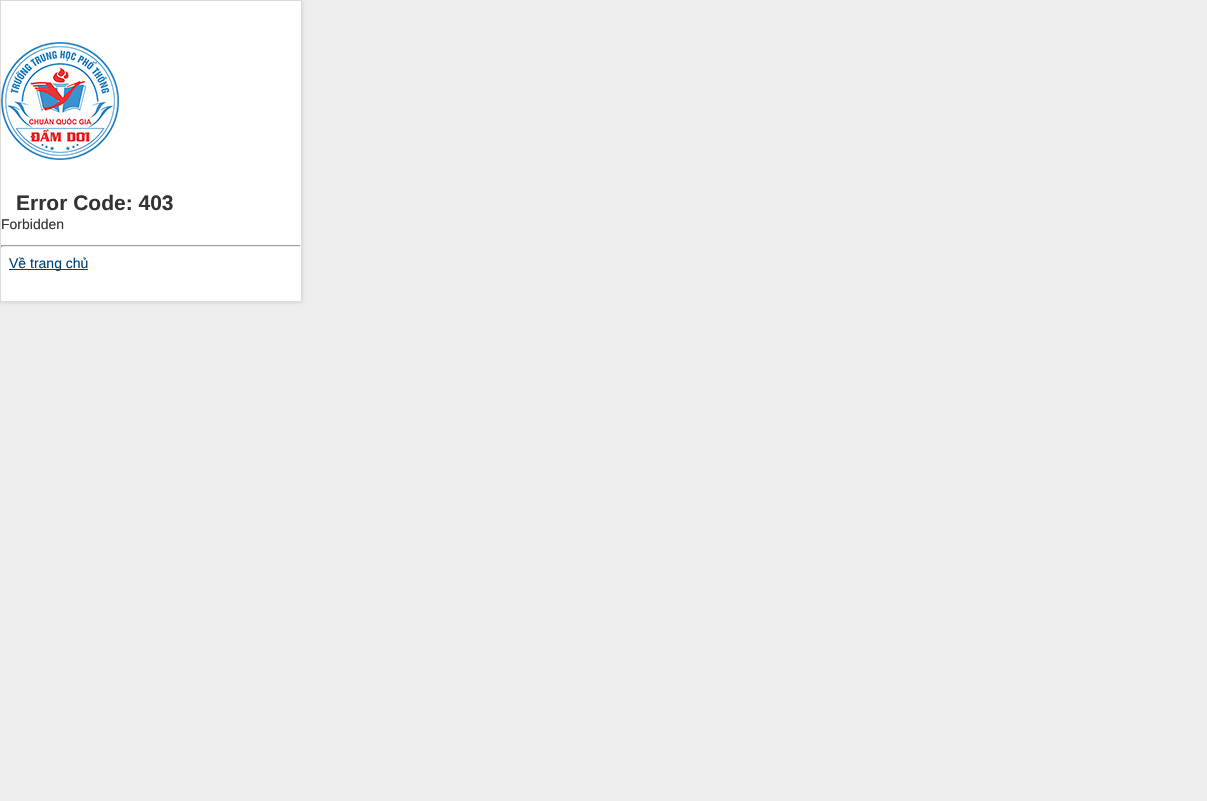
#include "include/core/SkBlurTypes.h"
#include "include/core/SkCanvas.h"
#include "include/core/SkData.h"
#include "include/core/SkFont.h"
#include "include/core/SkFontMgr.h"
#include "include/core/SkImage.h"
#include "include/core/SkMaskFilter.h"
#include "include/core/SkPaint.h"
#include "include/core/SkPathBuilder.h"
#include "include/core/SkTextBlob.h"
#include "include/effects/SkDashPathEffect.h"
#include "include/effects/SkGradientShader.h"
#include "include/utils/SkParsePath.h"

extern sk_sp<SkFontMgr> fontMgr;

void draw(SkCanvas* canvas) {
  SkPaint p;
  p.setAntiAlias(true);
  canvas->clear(SkColorSetRGB(238, 238, 238));
  p.setColor(SkColorSetARGB(38, 0, 0, 0));
  p.setMaskFilter(SkMaskFilter::MakeBlur(kNormal_SkBlurStyle, 2));
  canvas->drawRect(SkRect::MakeLTRB(0, 0, 302, 302), p);
  p.setMaskFilter(nullptr);
  p.setColor(SK_ColorWHITE);
  canvas->drawRect(SkRect::MakeLTRB(0.5f, 0.5f, 301.5f, 301.5f), p);
  p.setStyle(SkPaint::kStroke_Style);
  p.setStrokeWidth(1);
  p.setColor(SkColorSetRGB(220, 220, 220));
  canvas->drawRect(SkRect::MakeLTRB(0.5f, 0.5f, 301.5f, 301.5f), p);
  canvas->drawImageRect(SkImages::DeferredFromEncodedData(SkData::MakeFromFileName("images/1.png")), SkRect::MakeLTRB(1, 42, 119, 160), SkSamplingOptions());
  p.setStyle(SkPaint::kFill_Style);
  p.setColor(SkColorSetRGB(159, 159, 159));
  canvas->drawRect(SkRect::MakeLTRB(1, 245, 301, 246), p);
  p.setColor(SkColorSetRGB(238, 238, 238));
  canvas->drawRect(SkRect::MakeLTRB(300, 245, 301, 247), p);
  canvas->drawRect(SkRect::MakeLTRB(1, 246, 301, 247), p);
  p.setColor(SkColorSetRGB(159, 159, 159));
  canvas->drawRect(SkRect::MakeLTRB(1, 245, 2, 247), p);
  p.setColor(SkColorSetRGB(0, 65, 117));
  canvas->drawRect(SkRect::MakeLTRB(9, 269, 88, 270), p);
  SkFont font1(fontMgr->matchFamilyStyle("Liberation Sans", SkFontStyle::Bold()), 21);
  font1.setSubpixel(true);
  p.setColor(SkColorSetRGB(51, 51, 51));
  canvas->drawString("Error Code: 403", 16, 210, font1, p);
  SkFont font2(fontMgr->matchFamilyStyle("Liberation Sans", SkFontStyle::Normal()), 14);
  font2.setSubpixel(true);
  canvas->drawString("Forbidden", 1, 229, font2, p);
  p.setColor(SkColorSetRGB(0, 65, 117));
  canvas->drawString("Về trang chủ", 9, 268, font2, p);
}
